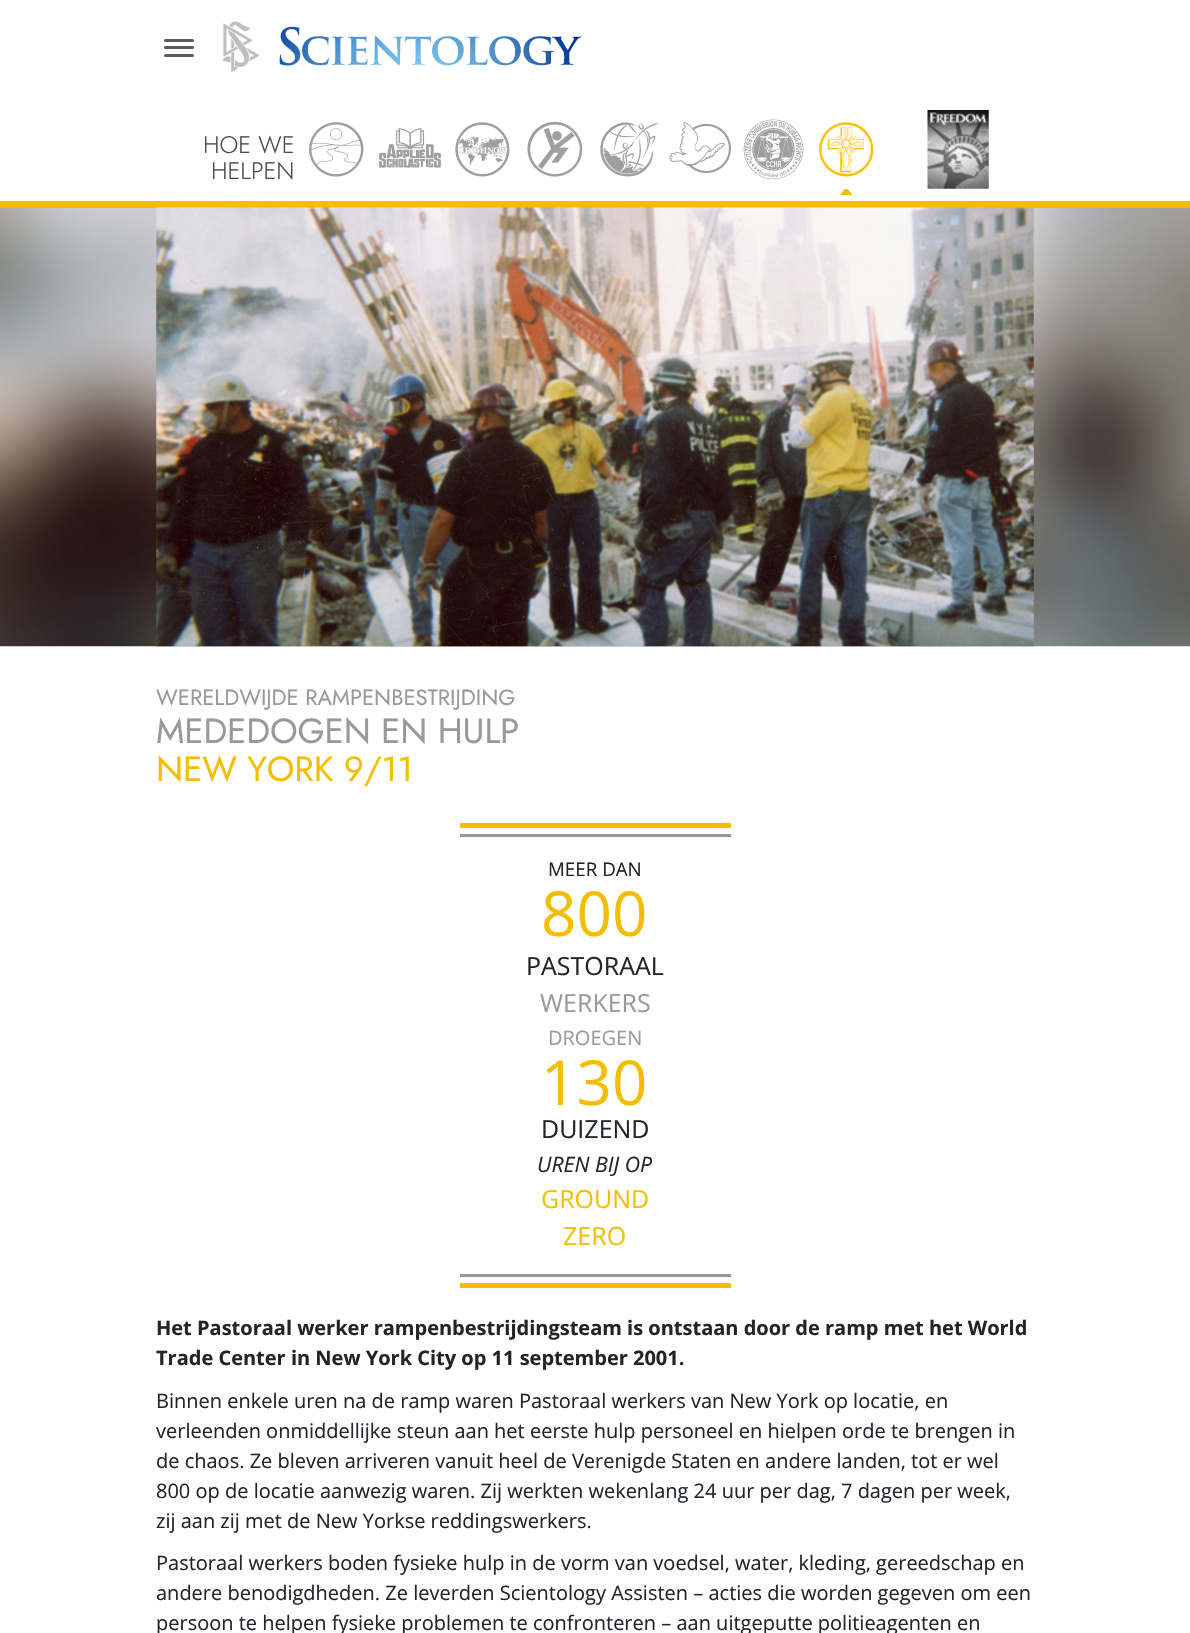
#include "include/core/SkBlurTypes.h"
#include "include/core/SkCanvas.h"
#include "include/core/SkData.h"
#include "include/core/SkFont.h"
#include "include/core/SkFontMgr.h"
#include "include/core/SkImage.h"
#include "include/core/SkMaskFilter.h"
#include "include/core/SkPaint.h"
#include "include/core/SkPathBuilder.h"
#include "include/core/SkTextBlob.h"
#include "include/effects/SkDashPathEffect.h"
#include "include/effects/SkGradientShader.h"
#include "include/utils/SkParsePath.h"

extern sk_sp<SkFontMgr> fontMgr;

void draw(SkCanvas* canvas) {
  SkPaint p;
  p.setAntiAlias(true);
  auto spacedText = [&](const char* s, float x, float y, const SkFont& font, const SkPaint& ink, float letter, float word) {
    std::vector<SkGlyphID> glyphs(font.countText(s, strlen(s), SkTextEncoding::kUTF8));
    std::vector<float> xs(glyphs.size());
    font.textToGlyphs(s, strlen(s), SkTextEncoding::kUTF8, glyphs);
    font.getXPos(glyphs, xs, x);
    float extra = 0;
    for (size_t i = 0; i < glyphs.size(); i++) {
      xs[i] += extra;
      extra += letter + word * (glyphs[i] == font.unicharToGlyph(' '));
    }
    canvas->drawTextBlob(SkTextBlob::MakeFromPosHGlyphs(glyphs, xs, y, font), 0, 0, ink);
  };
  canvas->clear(SK_ColorWHITE);
  p.setColor(SkColorSetRGB(87, 91, 94));
  canvas->drawRoundRect(SkRect::MakeLTRB(164, 39, 194, 42), 1.5f, 1.5f, p);
  canvas->drawRoundRect(SkRect::MakeLTRB(164, 46, 194, 49), 1.5f, 1.5f, p);
  canvas->drawRoundRect(SkRect::MakeLTRB(164, 54, 194, 57), 1.5f, 1.5f, p);
  canvas->drawImageRect(SkImages::DeferredFromEncodedData(SkData::MakeFromFileName("images/1.png")), SkRect::MakeLTRB(223, 21, 260, 72), SkSamplingOptions());
  canvas->drawImageRect(SkImages::DeferredFromEncodedData(SkData::MakeFromFileName("images/2.png")), SkRect::MakeLTRB(279, 26, 582, 66), SkSamplingOptions());
  canvas->drawImageRect(SkImages::DeferredFromEncodedData(SkData::MakeFromFileName("images/3.png")), SkRect::MakeLTRB(309, 122, 364, 177), SkSamplingOptions());
  canvas->drawImageRect(SkImages::DeferredFromEncodedData(SkData::MakeFromFileName("images/4.png")), SkRect::MakeLTRB(379, 128, 441, 168), SkSamplingOptions());
  canvas->drawImageRect(SkImages::DeferredFromEncodedData(SkData::MakeFromFileName("images/5.png")), SkRect::MakeLTRB(455, 122, 510, 177), SkSamplingOptions());
  canvas->drawImageRect(SkImages::DeferredFromEncodedData(SkData::MakeFromFileName("images/6.png")), SkRect::MakeLTRB(527, 121, 583, 177), SkSamplingOptions());
  canvas->drawImageRect(SkImages::DeferredFromEncodedData(SkData::MakeFromFileName("images/7.png")), SkRect::MakeLTRB(600, 122, 659, 177), SkSamplingOptions());
  canvas->drawImageRect(SkImages::DeferredFromEncodedData(SkData::MakeFromFileName("images/8.png")), SkRect::MakeLTRB(669, 122, 731, 174), SkSamplingOptions());
  canvas->drawImageRect(SkImages::DeferredFromEncodedData(SkData::MakeFromFileName("images/9.png")), SkRect::MakeLTRB(743, 119, 804, 180), SkSamplingOptions());
  canvas->drawImageRect(SkImages::DeferredFromEncodedData(SkData::MakeFromFileName("images/10.png")), SkRect::MakeLTRB(819, 122, 874, 177), SkSamplingOptions());
  canvas->save();
  canvas->clipRect(SkRect::MakeLTRB(830, 189, 863, 195));
  p.setColor(SkColorSetRGB(245, 189, 0));
  canvas->drawPath(SkPathBuilder().moveTo(844, 190).lineTo(830, 207.5f).lineTo(862.5f, 207.5f).lineTo(848.5f, 190).cubicTo(847.5f, 188.5f, 846, 188.5f, 844.5f, 189.5f).close().detach(), p);
  canvas->restore();
  canvas->drawImageRect(SkImages::DeferredFromEncodedData(SkData::MakeFromFileName("images/11.png")), SkRect::MakeLTRB(927, 110, 989, 189), SkSamplingOptions());
  canvas->drawRect(SkRect::MakeLTRB(0, 201, 1190, 208), p);
  canvas->drawImageRect(SkImages::DeferredFromEncodedData(SkData::MakeFromFileName("images/13.png")), SkRect::MakeLTRB(0, 208, 1190, 647), SkSamplingOptions());
  canvas->drawImageRect(SkImages::DeferredFromEncodedData(SkData::MakeFromFileName("images/12.png")), SkRect::MakeLTRB(156, 207, 1034, 647), SkSamplingOptions());
  canvas->drawRect(SkRect::MakeLTRB(460, 823, 731, 828), p);
  canvas->drawRect(SkRect::MakeLTRB(460, 1283, 731, 1288), p);
  p.setColor(SkColorSetRGB(153, 153, 153));
  canvas->drawRect(SkRect::MakeLTRB(460, 834, 731, 837), p);
  canvas->drawRect(SkRect::MakeLTRB(460, 1274, 731, 1277), p);
  SkFont font1(fontMgr->matchFamilyStyle("Jost", SkFontStyle(300, SkFontStyle::kNormal_Width, SkFontStyle::kUpright_Slant)), 24);
  font1.setSubpixel(true);
  p.setColor(SkColorSetRGB(74, 74, 74));
  canvas->drawString("HOE WE", 203, 153, font1, p);
  canvas->drawString("HELPEN", 211, 179, font1, p);
  SkFont font2(fontMgr->matchFamilyStyle("Jost", SkFontStyle::Normal()), 22);
  font2.setSubpixel(true);
  p.setColor(SkColorSetRGB(153, 153, 153));
  canvas->drawString("WERELDWIJDE RAMPENBESTRIJDING", 156, 705, font2, p);
  SkFont font3(fontMgr->matchFamilyStyle("Jost", SkFontStyle::Normal()), 35);
  font3.setSubpixel(true);
  spacedText("MEDEDOGEN EN HULP", 156, 743, font3, p, -0.1f, 0);
  p.setColor(SkColorSetRGB(245, 189, 0));
  spacedText("NEW YORK 9/11", 156, 781, font3, p, -0.1f, 0);
  SkFont font4(fontMgr->matchFamilyStyle("Open Sans", SkFontStyle::Normal()), 18.75f);
  font4.setSubpixel(true);
  p.setColor(SkColorSetRGB(33, 37, 41));
  canvas->drawString("MEER DAN", 548, 876, font4, p);
  SkFont font5(fontMgr->matchFamilyStyle("Open Sans", SkFontStyle::Normal()), 62);
  font5.setSubpixel(true);
  p.setColor(SkColorSetRGB(245, 189, 0));
  canvas->drawString("800", 541, 936, font5, p);
  SkFont font6(fontMgr->matchFamilyStyle("Open Sans", SkFontStyle::Normal()), 25);
  font6.setSubpixel(true);
  p.setColor(SkColorSetRGB(33, 37, 41));
  canvas->drawString("PASTORAAL", 526, 975, font6, p);
  p.setColor(SkColorSetRGB(153, 153, 153));
  canvas->drawString("WERKERS", 540, 1012, font6, p);
  SkFont font7(fontMgr->matchFamilyStyle("Open Sans", SkFontStyle::Normal()), 20);
  font7.setSubpixel(true);
  canvas->drawString("DROEGEN", 548, 1045, font7, p);
  p.setColor(SkColorSetRGB(245, 189, 0));
  canvas->drawString("130", 541, 1105, font5, p);
  p.setColor(SkColorSetRGB(33, 37, 41));
  canvas->drawString("DUIZEND", 541, 1138, font6, p);
  SkFont font8(fontMgr->matchFamilyStyle("Open Sans", SkFontStyle::Italic()), 21.25f);
  font8.setSubpixel(true);
  canvas->drawString("UREN BIJ OP", 537, 1172, font8, p);
  p.setColor(SkColorSetRGB(245, 189, 0));
  canvas->drawString("GROUND", 541, 1208, font6, p);
  canvas->drawString("ZERO", 563, 1245, font6, p);
  SkFont font9(fontMgr->matchFamilyStyle("Open Sans", SkFontStyle::Bold()), 20);
  font9.setSubpixel(true);
  p.setColor(SkColorSetRGB(33, 37, 41));
  canvas->drawString("Het Pastoraal werker rampenbestrijdingsteam is ontstaan door de ramp met het World", 156, 1335, font9, p);
  canvas->drawString("Trade Center in New York City op 11 september 2001.", 156, 1365, font9, p);
  canvas->drawString("Binnen enkele uren na de ramp waren Pastoraal werkers van New York op locatie, en", 156, 1408, font7, p);
  canvas->drawString("verleenden onmiddellijke steun aan het eerste hulp personeel en hielpen orde te brengen in", 156, 1438, font7, p);
  canvas->drawString("de chaos. Ze bleven arriveren vanuit heel de Verenigde Staten en andere landen, tot er wel", 156, 1468, font7, p);
  canvas->drawString("800 op de locatie aanwezig waren. Zij werkten wekenlang 24 uur per dag, 7 dagen per week,", 156, 1498, font7, p);
  canvas->drawString("zij aan zij met de New Yorkse reddingswerkers.", 156, 1528, font7, p);
  canvas->drawString("Pastoraal werkers boden fysieke hulp in de vorm van voedsel, water, kleding, gereedschap en", 156, 1570, font7, p);
  canvas->drawString("andere benodigdheden. Ze leverden Scientology Assisten – acties die worden gegeven om een", 156, 1600, font7, p);
  canvas->drawString("persoon te helpen fysieke problemen te confronteren – aan uitgeputte politieagenten en", 156, 1630, font7, p);
}
